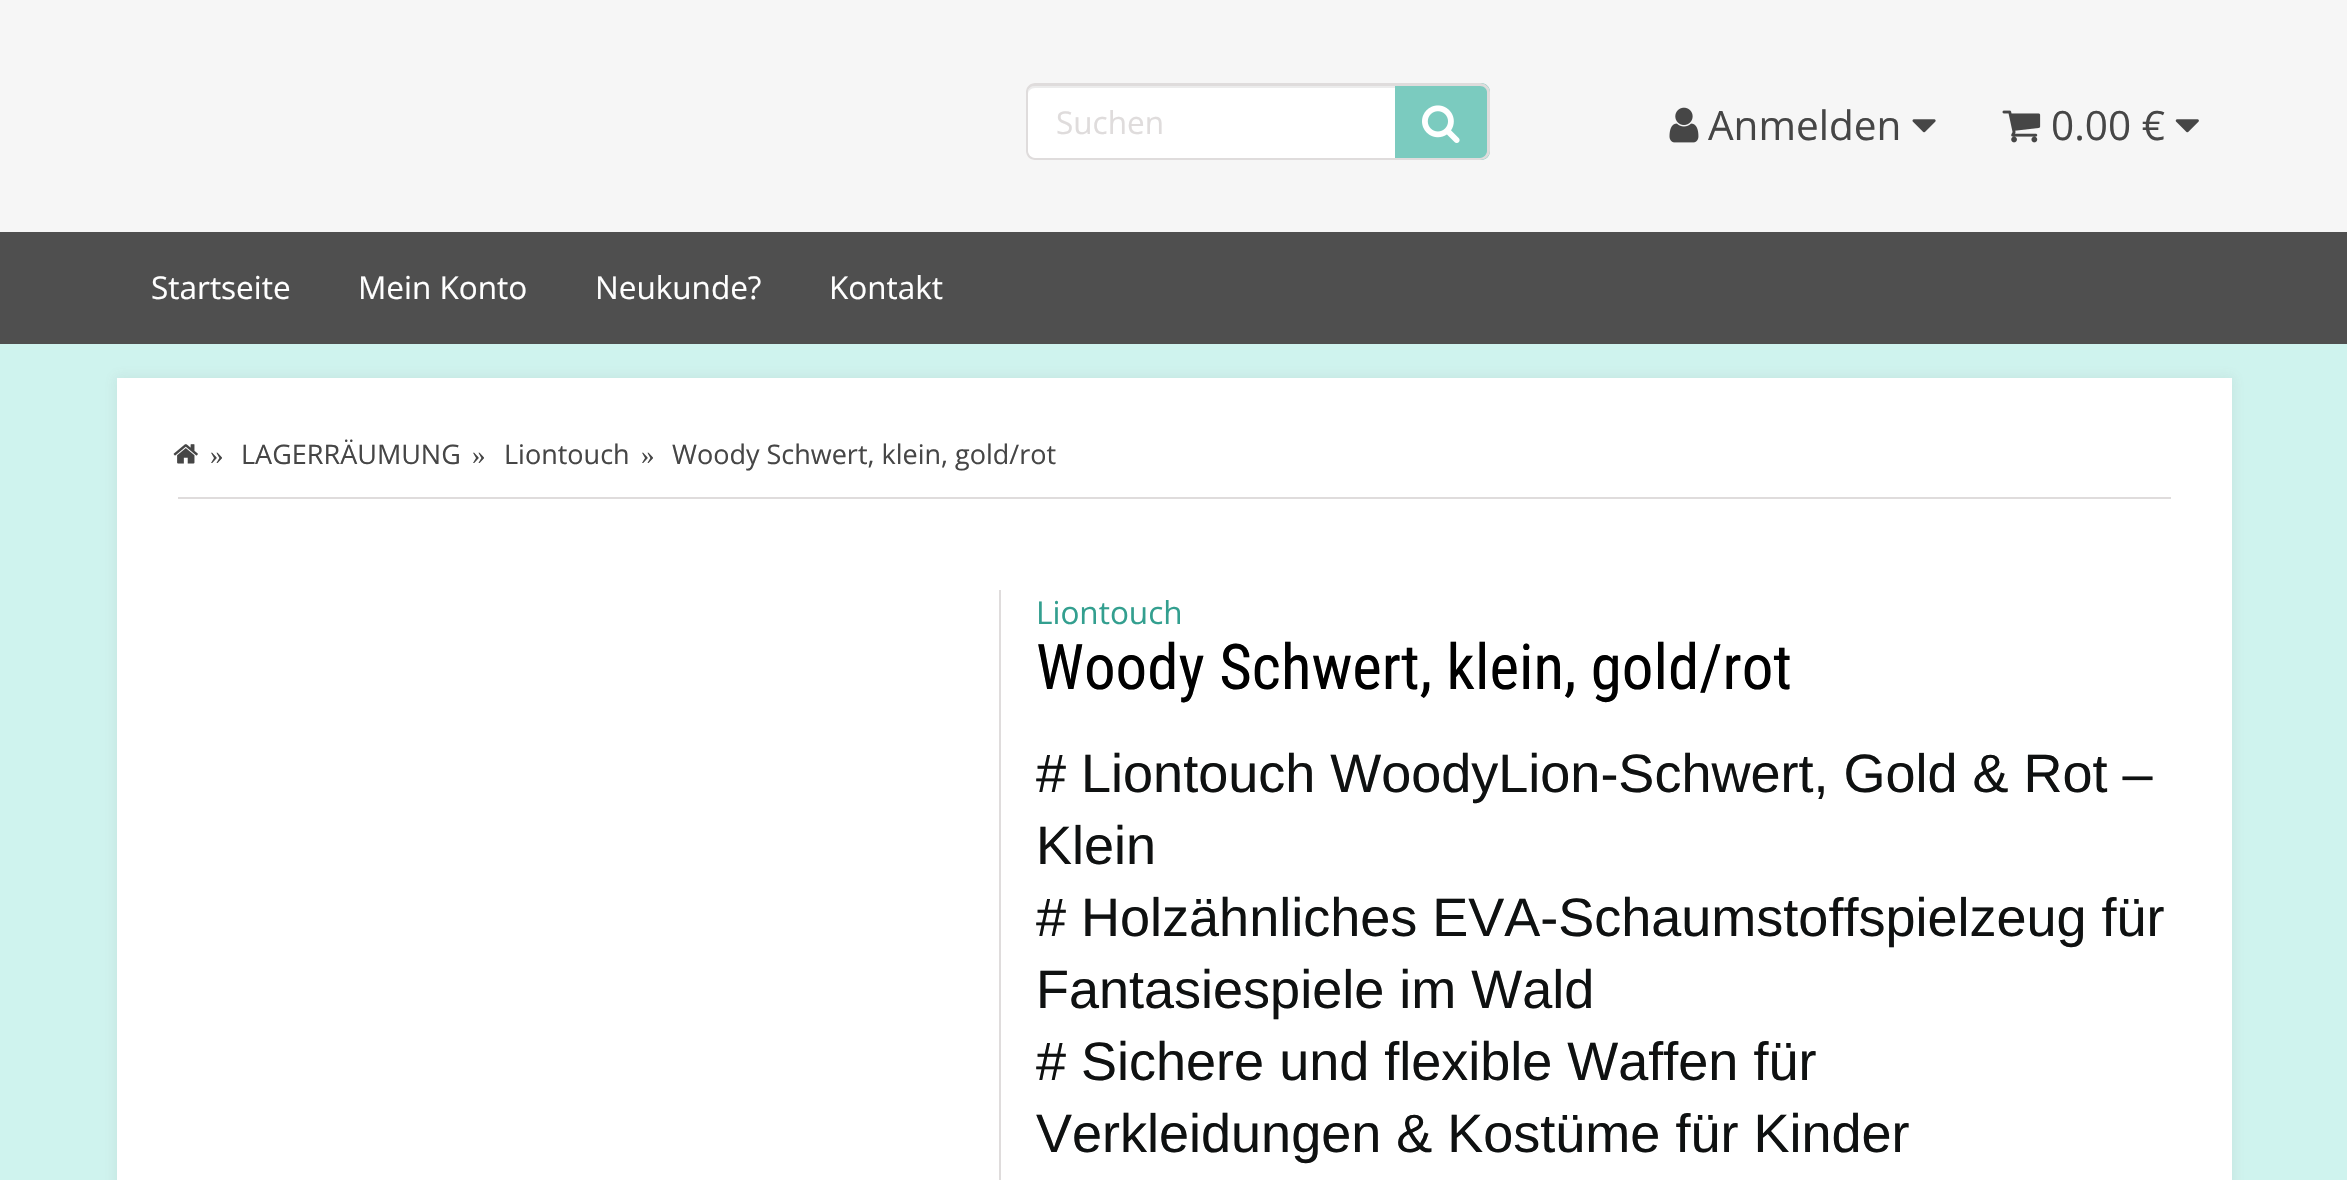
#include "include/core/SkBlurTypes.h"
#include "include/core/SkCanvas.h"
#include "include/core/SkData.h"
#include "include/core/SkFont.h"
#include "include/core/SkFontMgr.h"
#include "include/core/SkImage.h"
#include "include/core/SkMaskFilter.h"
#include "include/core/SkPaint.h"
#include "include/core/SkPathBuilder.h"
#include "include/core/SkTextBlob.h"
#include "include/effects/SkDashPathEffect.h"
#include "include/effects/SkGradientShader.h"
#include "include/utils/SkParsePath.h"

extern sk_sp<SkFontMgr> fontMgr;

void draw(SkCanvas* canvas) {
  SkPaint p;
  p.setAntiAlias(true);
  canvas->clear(SkColorSetRGB(207, 243, 238));
  p.setColor(SkColorSetRGB(246, 246, 246));
  canvas->drawRect(SkRect::MakeLTRB(0, 0, 2347, 232), p);
  p.setColor(SK_ColorWHITE);
  canvas->drawPath(SkPathBuilder().moveTo(1035, 83).lineTo(1395, 83).lineTo(1395, 160).lineTo(1035, 160).cubicTo(1030, 160, 1026, 156, 1026, 151).lineTo(1026, 92).cubicTo(1026, 87, 1030, 83, 1035, 83).close().detach(), p);
  p.setColor(SkColorSetRGB(236, 236, 236));
  canvas->drawPath(SkPathBuilder().moveTo(1035, 88).lineTo(1395, 88).lineTo(1395, 86).lineTo(1035, 86).cubicTo(1031, 86, 1028, 89, 1028, 93).lineTo(1028, 94).cubicTo(1028, 91, 1031, 88, 1035, 88).close().detach(), p);
  p.setColor(SkColorSetRGB(223, 220, 220));
  canvas->drawPath(SkPathBuilder(SkPathFillType::kEvenOdd).moveTo(1035, 83).lineTo(1395, 83).lineTo(1395, 160).lineTo(1035, 160).cubicTo(1030, 160, 1026, 156, 1026, 151).lineTo(1026, 92).cubicTo(1026, 87, 1030, 83, 1035, 83).close().moveTo(1035, 86).lineTo(1395, 86).lineTo(1395, 158).lineTo(1035, 158).cubicTo(1031, 158, 1028, 154, 1028, 151).lineTo(1028, 92).cubicTo(1028, 89, 1031, 86, 1035, 86).close().detach(), p);
  p.setColor(SkColorSetRGB(123, 203, 191));
  canvas->drawPath(SkPathBuilder().moveTo(1395, 83).lineTo(1481, 83).cubicTo(1486, 83, 1490, 87, 1490, 92).lineTo(1490, 151).cubicTo(1490, 156, 1486, 160, 1481, 160).lineTo(1395, 160).close().detach(), p);
  p.setColor(SkColorSetRGB(223, 220, 220));
  canvas->drawPath(SkPathBuilder(SkPathFillType::kEvenOdd).moveTo(1395, 83).lineTo(1480, 83).cubicTo(1485, 83, 1490, 87, 1490, 92).lineTo(1490, 151).cubicTo(1490, 156, 1485, 160, 1480, 160).lineTo(1395, 160).close().moveTo(1395, 86).lineTo(1480, 86).cubicTo(1484, 86, 1487, 89, 1487, 92).lineTo(1487, 151).cubicTo(1487, 154, 1484, 158, 1480, 158).lineTo(1395, 158).close().detach(), p);
  canvas->drawImageRect(SkImages::DeferredFromEncodedData(SkData::MakeFromFileName("images/1.png")), SkRect::MakeLTRB(1422, 105, 1460, 143), SkSamplingOptions());
  canvas->drawImageRect(SkImages::DeferredFromEncodedData(SkData::MakeFromFileName("images/2.png")), SkRect::MakeLTRB(1669, 107, 1699, 143), SkSamplingOptions());
  canvas->drawImageRect(SkImages::DeferredFromEncodedData(SkData::MakeFromFileName("images/3.png")), SkRect::MakeLTRB(1912, 119, 1936, 133), SkSamplingOptions());
  canvas->drawImageRect(SkImages::DeferredFromEncodedData(SkData::MakeFromFileName("images/4.png")), SkRect::MakeLTRB(2002, 110, 2041, 143), SkSamplingOptions());
  canvas->drawImageRect(SkImages::DeferredFromEncodedData(SkData::MakeFromFileName("images/5.png")), SkRect::MakeLTRB(2175, 119, 2199, 133), SkSamplingOptions());
  p.setColor(SkColorSetRGB(79, 79, 79));
  canvas->drawRect(SkRect::MakeLTRB(0, 232, 2347, 344), p);
  p.setColor(SkColorSetARGB(26, 106, 106, 106));
  p.setMaskFilter(SkMaskFilter::MakeBlur(kNormal_SkBlurStyle, 5.5f));
  canvas->drawRect(SkRect::MakeLTRB(115, 376, 2234, 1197), p);
  p.setMaskFilter(nullptr);
  p.setColor(SK_ColorWHITE);
  canvas->drawRect(SkRect::MakeLTRB(117, 378, 2232, 1180), p);
  p.setColor(SkColorSetRGB(223, 220, 220));
  canvas->drawRect(SkRect::MakeLTRB(178, 497, 2171, 499), p);
  canvas->drawImageRect(SkImages::DeferredFromEncodedData(SkData::MakeFromFileName("images/6.png")), SkRect::MakeLTRB(173, 444, 198, 464), SkSamplingOptions());
  canvas->drawRect(SkRect::MakeLTRB(999, 590, 1001, 1180), p);
  SkFont font1(fontMgr->matchFamilyStyle("Open Sans", SkFontStyle::Normal()), 31.5f);
  font1.setSubpixel(true);
  canvas->drawString("Suchen", 1056, 134, font1, p);
  SkFont font2(fontMgr->matchFamilyStyle("Open Sans", SkFontStyle::Normal()), 40.5f);
  font2.setSubpixel(true);
  p.setColor(SkColorSetRGB(70, 70, 70));
  canvas->drawString("Anmelden", 1708, 140, font2, p);
  canvas->drawString("0.00 €", 2051, 140, font2, p);
  p.setColor(SK_ColorWHITE);
  canvas->drawString("Startseite", 151, 299, font1, p);
  canvas->drawString("Mein Konto", 358, 299, font1, p);
  canvas->drawString("Neukunde?", 595, 299, font1, p);
  canvas->drawString("Kontakt", 829, 299, font1, p);
  SkFont font3(fontMgr->matchFamilyStyle("Liberation Serif", SkFontStyle::Normal()), 27);
  font3.setSubpixel(true);
  p.setColor(SkColorSetRGB(70, 70, 70));
  canvas->drawString("»", 210, 464, font3, p);
  SkFont font4(fontMgr->matchFamilyStyle("Open Sans", SkFontStyle::Normal()), 27);
  font4.setSubpixel(true);
  canvas->drawString("LAGERRÄUMUNG", 241, 464, font4, p);
  canvas->drawString("»", 472, 464, font3, p);
  canvas->drawString("Liontouch", 504, 464, font4, p);
  canvas->drawString("»", 641, 464, font3, p);
  canvas->drawString("Woody Schwert, klein, gold/rot", 672, 464, font4, p);
  p.setColor(SkColorSetRGB(51, 159, 143));
  canvas->drawString("Liontouch", 1036, 624, font1, p);
  SkFont font5(fontMgr->matchFamilyStyle("Roboto Condensed", SkFontStyle::Normal()), 63);
  font5.setSubpixel(true);
  p.setColor(SK_ColorBLACK);
  canvas->drawString("Woody Schwert, klein, gold/rot", 1036, 689, font5, p);
  SkFont font6(fontMgr->matchFamilyStyle("Liberation Sans", SkFontStyle::Normal()), 54);
  font6.setSubpixel(true);
  p.setColor(SkColorSetRGB(15, 17, 17));
  canvas->drawString("# Liontouch WoodyLion-Schwert, Gold & Rot –", 1036, 792, font6, p);
  canvas->drawString("Klein", 1036, 864, font6, p);
  canvas->drawString("# Holzähnliches EVA-Schaumstoffspielzeug für", 1036, 936, font6, p);
  canvas->drawString("Fantasiespiele im Wald", 1036, 1008, font6, p);
  canvas->drawString("# Sichere und flexible Waffen für", 1036, 1080, font6, p);
  canvas->drawString("Verkleidungen & Kostüme für Kinder", 1036, 1152, font6, p);
}
